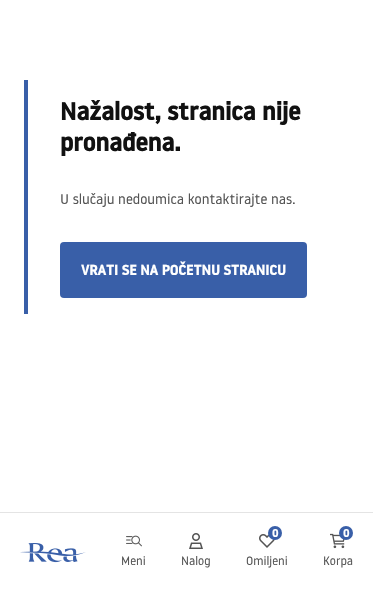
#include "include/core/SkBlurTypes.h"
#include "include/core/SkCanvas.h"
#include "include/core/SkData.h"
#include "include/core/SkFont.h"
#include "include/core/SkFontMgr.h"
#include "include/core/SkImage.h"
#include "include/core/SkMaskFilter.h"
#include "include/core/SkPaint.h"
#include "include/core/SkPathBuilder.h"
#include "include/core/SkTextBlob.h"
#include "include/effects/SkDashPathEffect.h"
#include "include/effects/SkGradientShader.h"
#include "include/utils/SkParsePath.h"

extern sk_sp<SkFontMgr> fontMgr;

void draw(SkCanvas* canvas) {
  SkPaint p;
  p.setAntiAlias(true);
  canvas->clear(SK_ColorWHITE);
  p.setColor(SkColorSetRGB(57, 95, 168));
  canvas->drawRect(SkRect::MakeLTRB(24, 80, 28, 314), p);
  canvas->drawRoundRect(SkRect::MakeLTRB(60, 242, 307, 298), 4, 4, p);
  p.setColor(SkColorSetRGB(228, 228, 228));
  canvas->drawRect(SkRect::MakeLTRB(0, 512, 373, 513), p);
  canvas->drawImageRect(SkImages::DeferredFromEncodedData(SkData::MakeFromFileName("images/1.png")), SkRect::MakeLTRB(20, 543, 86, 563), SkSamplingOptions());
  canvas->drawImageRect(SkImages::DeferredFromEncodedData(SkData::MakeFromFileName("images/2.png")), SkRect::MakeLTRB(126, 535, 142, 547), SkSamplingOptions());
  canvas->drawImageRect(SkImages::DeferredFromEncodedData(SkData::MakeFromFileName("images/3.png")), SkRect::MakeLTRB(189, 533, 203, 549), SkSamplingOptions());
  canvas->drawImageRect(SkImages::DeferredFromEncodedData(SkData::MakeFromFileName("images/4.png")), SkRect::MakeLTRB(259, 534, 275, 548), SkSamplingOptions());
  p.setColor(SkColorSetRGB(57, 95, 168));
  canvas->drawCircle(275, 533, 7, p);
  canvas->drawImageRect(SkImages::DeferredFromEncodedData(SkData::MakeFromFileName("images/5.png")), SkRect::MakeLTRB(330, 533, 345, 549), SkSamplingOptions());
  canvas->drawCircle(346, 533, 7, p);
  SkFont font1(fontMgr->matchFamilyStyle("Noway", SkFontStyle::Bold()), 24.5f);
  font1.setSubpixel(true);
  p.setColor(SkColorSetRGB(17, 17, 17));
  canvas->drawString("Nažalost, stranica nije", 60, 120, font1, p);
  canvas->drawString("pronađena.", 60, 151, font1, p);
  SkFont font2(fontMgr->matchFamilyStyle("Noway", SkFontStyle::Normal()), 14);
  font2.setSubpixel(true);
  p.setColor(SkColorSetRGB(84, 84, 84));
  canvas->drawString("U slučaju nedoumica kontaktirajte nas.", 60, 204, font2, p);
  SkFont font3(fontMgr->matchFamilyStyle("Noway", SkFontStyle::Bold()), 14);
  font3.setSubpixel(true);
  p.setColor(SK_ColorWHITE);
  canvas->drawString("VRATI SE NA POČETNU STRANICU", 81, 275, font3, p);
  SkFont font4(fontMgr->matchFamilyStyle("Noway", SkFontStyle::Normal()), 12);
  font4.setSubpixel(true);
  p.setColor(SkColorSetRGB(84, 84, 84));
  canvas->drawString("Meni", 121, 565, font4, p);
  canvas->drawString("Nalog", 181, 565, font4, p);
  SkFont font5(fontMgr->matchFamilyStyle("Noway", SkFontStyle::Bold()), 11);
  font5.setSubpixel(true);
  p.setColor(SK_ColorWHITE);
  canvas->drawString("0", 272, 537, font5, p);
  p.setColor(SkColorSetRGB(84, 84, 84));
  canvas->drawString("Omiljeni", 246, 565, font4, p);
  p.setColor(SK_ColorWHITE);
  canvas->drawString("0", 343, 537, font5, p);
  p.setColor(SkColorSetRGB(84, 84, 84));
  canvas->drawString("Korpa", 323, 565, font4, p);
}
